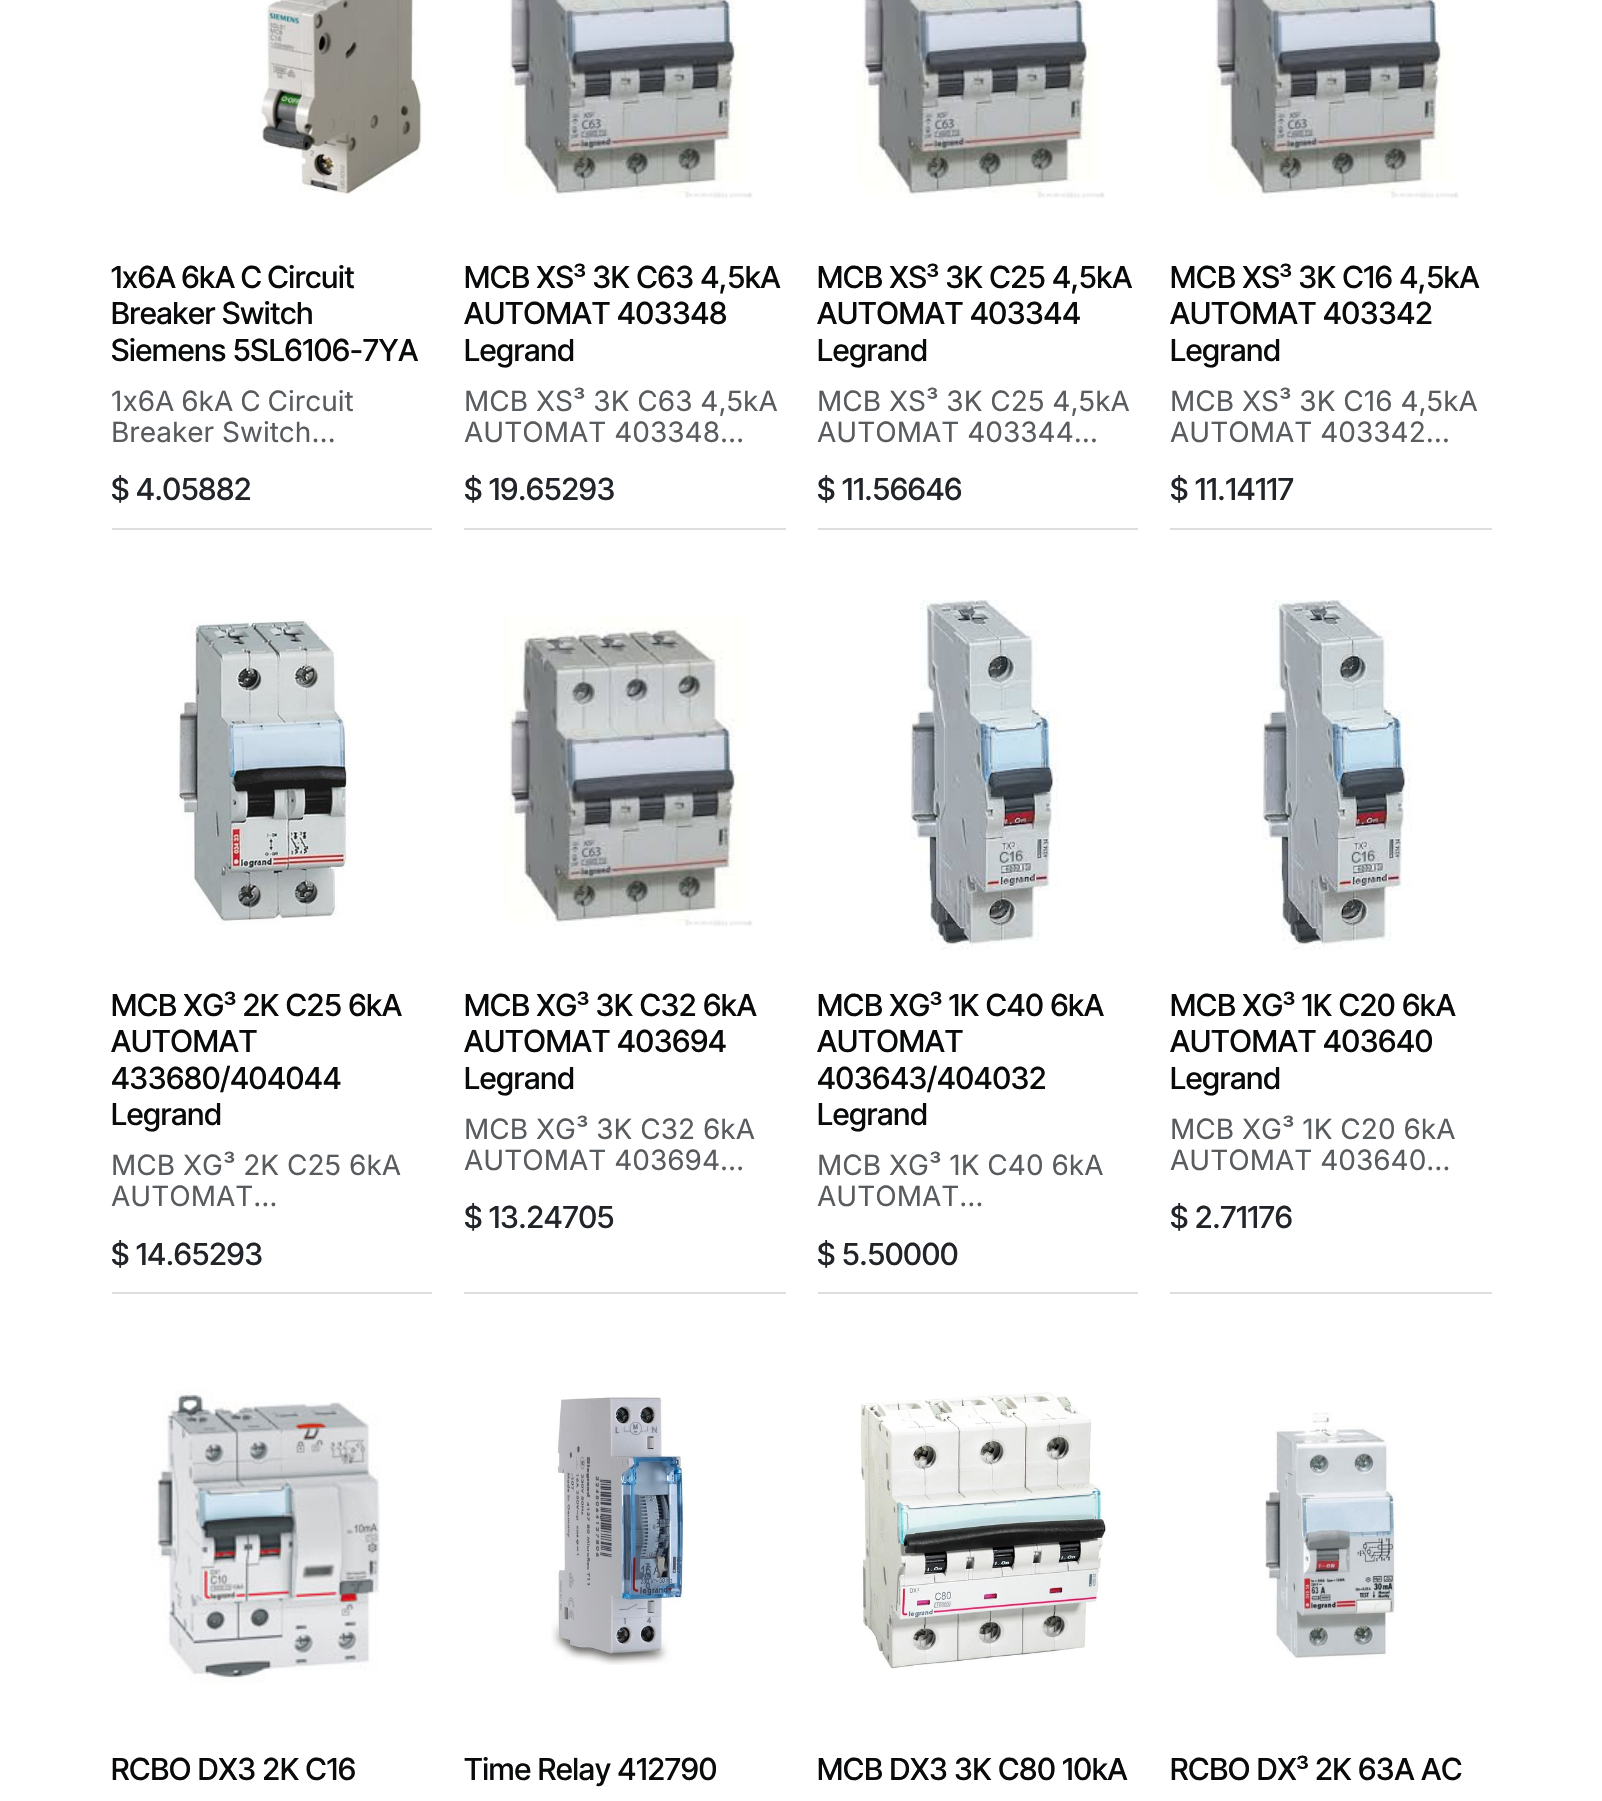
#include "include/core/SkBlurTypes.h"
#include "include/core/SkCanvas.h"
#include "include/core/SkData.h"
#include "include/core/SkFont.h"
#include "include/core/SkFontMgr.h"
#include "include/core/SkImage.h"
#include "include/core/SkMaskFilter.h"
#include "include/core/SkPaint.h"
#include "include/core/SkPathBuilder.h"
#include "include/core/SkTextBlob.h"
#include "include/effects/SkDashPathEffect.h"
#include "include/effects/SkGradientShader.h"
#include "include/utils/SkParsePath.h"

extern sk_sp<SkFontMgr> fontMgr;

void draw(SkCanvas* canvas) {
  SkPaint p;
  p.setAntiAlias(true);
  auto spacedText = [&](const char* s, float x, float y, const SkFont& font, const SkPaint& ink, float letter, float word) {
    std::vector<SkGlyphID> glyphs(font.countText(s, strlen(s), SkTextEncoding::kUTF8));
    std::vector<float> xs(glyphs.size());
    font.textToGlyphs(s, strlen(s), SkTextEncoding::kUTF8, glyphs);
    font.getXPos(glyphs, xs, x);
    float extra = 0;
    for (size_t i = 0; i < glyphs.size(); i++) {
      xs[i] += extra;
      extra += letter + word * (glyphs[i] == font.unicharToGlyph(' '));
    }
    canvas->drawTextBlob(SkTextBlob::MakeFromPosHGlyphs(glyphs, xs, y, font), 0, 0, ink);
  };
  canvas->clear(SK_ColorWHITE);
  p.setColor(SkColorSetRGB(222, 222, 223));
  canvas->drawRect(SkRect::MakeLTRB(112, 528, 432, 530), p);
  canvas->drawImageRect(SkImages::DeferredFromEncodedData(SkData::MakeFromFileName("images/1.png")), SkRect::MakeLTRB(258, 0, 423, 200), SkSamplingOptions());
  canvas->drawRect(SkRect::MakeLTRB(464, 528, 786, 530), p);
  canvas->drawImageRect(SkImages::DeferredFromEncodedData(SkData::MakeFromFileName("images/2.png")), SkRect::MakeLTRB(503, 0, 753, 198), SkSamplingOptions());
  canvas->drawRect(SkRect::MakeLTRB(818, 528, 1138, 530), p);
  canvas->drawImageRect(SkImages::DeferredFromEncodedData(SkData::MakeFromFileName("images/3.png")), SkRect::MakeLTRB(857, 0, 1105, 198), SkSamplingOptions());
  canvas->drawRect(SkRect::MakeLTRB(1170, 528, 1492, 530), p);
  canvas->drawImageRect(SkImages::DeferredFromEncodedData(SkData::MakeFromFileName("images/2.png")), SkRect::MakeLTRB(1209, 0, 1459, 198), SkSamplingOptions());
  canvas->drawRect(SkRect::MakeLTRB(112, 1292, 432, 1294), p);
  canvas->drawImageRect(SkImages::DeferredFromEncodedData(SkData::MakeFromFileName("images/4.png")), SkRect::MakeLTRB(177, 619, 351, 925), SkSamplingOptions());
  canvas->drawRect(SkRect::MakeLTRB(464, 1292, 786, 1294), p);
  canvas->drawImageRect(SkImages::DeferredFromEncodedData(SkData::MakeFromFileName("images/5.png")), SkRect::MakeLTRB(503, 616, 753, 926), SkSamplingOptions());
  canvas->drawRect(SkRect::MakeLTRB(818, 1292, 1138, 1294), p);
  canvas->drawImageRect(SkImages::DeferredFromEncodedData(SkData::MakeFromFileName("images/6.png")), SkRect::MakeLTRB(909, 600, 1060, 951), SkSamplingOptions());
  canvas->drawRect(SkRect::MakeLTRB(1170, 1292, 1492, 1294), p);
  canvas->drawImageRect(SkImages::DeferredFromEncodedData(SkData::MakeFromFileName("images/6.png")), SkRect::MakeLTRB(1261, 600, 1412, 951), SkSamplingOptions());
  canvas->drawImageRect(SkImages::DeferredFromEncodedData(SkData::MakeFromFileName("images/7.png")), SkRect::MakeLTRB(151, 1389, 380, 1683), SkSamplingOptions());
  canvas->drawImageRect(SkImages::DeferredFromEncodedData(SkData::MakeFromFileName("images/8.png")), SkRect::MakeLTRB(551, 1397, 685, 1665), SkSamplingOptions());
  canvas->drawImageRect(SkImages::DeferredFromEncodedData(SkData::MakeFromFileName("images/9.png")), SkRect::MakeLTRB(860, 1392, 1107, 1669), SkSamplingOptions());
  canvas->drawImageRect(SkImages::DeferredFromEncodedData(SkData::MakeFromFileName("images/10.png")), SkRect::MakeLTRB(1265, 1412, 1402, 1659), SkSamplingOptions());
  SkFont font1(fontMgr->matchFamilyStyle("Inter Tight", SkFontStyle(500, SkFontStyle::kNormal_Width, SkFontStyle::kUpright_Slant)), 30.4f);
  font1.setSubpixel(true);
  p.setColor(SkColorSetRGB(9, 10, 11));
  spacedText("1x6A 6kA C Circuit", 111, 288, font1, p, 0, -1);
  canvas->drawString("Breaker Switch", 111, 324, font1, p);
  canvas->drawString("Siemens 5SL6106-7YA", 111, 361, font1, p);
  SkFont font2(fontMgr->matchFamilyStyle("Inter", SkFontStyle::Normal()), 28);
  font2.setSubpixel(true);
  p.setColor(SkColorSetRGB(89, 92, 95));
  spacedText("1x6A 6kA C Circuit", 111, 411, font2, p, 0, -1);
  canvas->drawString("Breaker Switch…", 111, 442, font2, p);
  p.setColor(SkColorSetRGB(33, 37, 41));
  canvas->drawString("$ 4.05882", 111, 500, font1, p);
  p.setColor(SkColorSetRGB(9, 10, 11));
  canvas->drawString("MCB XS³ 3K C63 4,5kA", 464, 288, font1, p);
  canvas->drawString("AUTOMAT 403348", 464, 324, font1, p);
  canvas->drawString("Legrand", 464, 361, font1, p);
  p.setColor(SkColorSetRGB(89, 92, 95));
  canvas->drawString("MCB XS³ 3K C63 4,5kA", 464, 411, font2, p);
  canvas->drawString("AUTOMAT 403348…", 464, 442, font2, p);
  p.setColor(SkColorSetRGB(33, 37, 41));
  canvas->drawString("$ 19.65293", 464, 500, font1, p);
  p.setColor(SkColorSetRGB(9, 10, 11));
  canvas->drawString("MCB XS³ 3K C25 4,5kA", 817, 288, font1, p);
  canvas->drawString("AUTOMAT 403344", 817, 324, font1, p);
  canvas->drawString("Legrand", 817, 361, font1, p);
  p.setColor(SkColorSetRGB(89, 92, 95));
  canvas->drawString("MCB XS³ 3K C25 4,5kA", 817, 411, font2, p);
  canvas->drawString("AUTOMAT 403344…", 817, 442, font2, p);
  p.setColor(SkColorSetRGB(33, 37, 41));
  canvas->drawString("$ 11.56646", 817, 500, font1, p);
  p.setColor(SkColorSetRGB(9, 10, 11));
  canvas->drawString("MCB XS³ 3K C16 4,5kA", 1170, 288, font1, p);
  canvas->drawString("AUTOMAT 403342", 1170, 324, font1, p);
  canvas->drawString("Legrand", 1170, 361, font1, p);
  p.setColor(SkColorSetRGB(89, 92, 95));
  canvas->drawString("MCB XS³ 3K C16 4,5kA", 1170, 411, font2, p);
  canvas->drawString("AUTOMAT 403342…", 1170, 442, font2, p);
  p.setColor(SkColorSetRGB(33, 37, 41));
  canvas->drawString("$ 11.14117", 1170, 500, font1, p);
  p.setColor(SkColorSetRGB(9, 10, 11));
  canvas->drawString("MCB XG³ 2K C25 6kA", 111, 1016, font1, p);
  canvas->drawString("AUTOMAT", 111, 1052, font1, p);
  canvas->drawString("433680/404044", 111, 1089, font1, p);
  canvas->drawString("Legrand", 111, 1125, font1, p);
  p.setColor(SkColorSetRGB(89, 92, 95));
  canvas->drawString("MCB XG³ 2K C25 6kA", 111, 1175, font2, p);
  canvas->drawString("AUTOMAT…", 111, 1206, font2, p);
  p.setColor(SkColorSetRGB(33, 37, 41));
  canvas->drawString("$ 14.65293", 111, 1265, font1, p);
  p.setColor(SkColorSetRGB(9, 10, 11));
  canvas->drawString("MCB XG³ 3K C32 6kA", 464, 1016, font1, p);
  canvas->drawString("AUTOMAT 403694", 464, 1052, font1, p);
  canvas->drawString("Legrand", 464, 1089, font1, p);
  p.setColor(SkColorSetRGB(89, 92, 95));
  canvas->drawString("MCB XG³ 3K C32 6kA", 464, 1139, font2, p);
  canvas->drawString("AUTOMAT 403694…", 464, 1170, font2, p);
  p.setColor(SkColorSetRGB(33, 37, 41));
  canvas->drawString("$ 13.24705", 464, 1228, font1, p);
  p.setColor(SkColorSetRGB(9, 10, 11));
  canvas->drawString("MCB XG³ 1K C40 6kA", 817, 1016, font1, p);
  canvas->drawString("AUTOMAT", 817, 1052, font1, p);
  canvas->drawString("403643/404032", 817, 1089, font1, p);
  canvas->drawString("Legrand", 817, 1125, font1, p);
  p.setColor(SkColorSetRGB(89, 92, 95));
  canvas->drawString("MCB XG³ 1K C40 6kA", 817, 1175, font2, p);
  canvas->drawString("AUTOMAT…", 817, 1206, font2, p);
  p.setColor(SkColorSetRGB(33, 37, 41));
  canvas->drawString("$ 5.50000", 817, 1265, font1, p);
  p.setColor(SkColorSetRGB(9, 10, 11));
  canvas->drawString("MCB XG³ 1K C20 6kA", 1170, 1016, font1, p);
  canvas->drawString("AUTOMAT 403640", 1170, 1052, font1, p);
  canvas->drawString("Legrand", 1170, 1089, font1, p);
  p.setColor(SkColorSetRGB(89, 92, 95));
  canvas->drawString("MCB XG³ 1K C20 6kA", 1170, 1139, font2, p);
  canvas->drawString("AUTOMAT 403640…", 1170, 1170, font2, p);
  p.setColor(SkColorSetRGB(33, 37, 41));
  canvas->drawString("$ 2.71176", 1170, 1228, font1, p);
  p.setColor(SkColorSetRGB(9, 10, 11));
  canvas->drawString("RCBO DX3 2K C16", 111, 1780, font1, p);
  canvas->drawString("Time Relay 412790", 464, 1780, font1, p);
  canvas->drawString("MCB DX3 3K C80 10kA", 817, 1780, font1, p);
  canvas->drawString("RCBO DX³ 2K 63A AC", 1170, 1780, font1, p);
}
